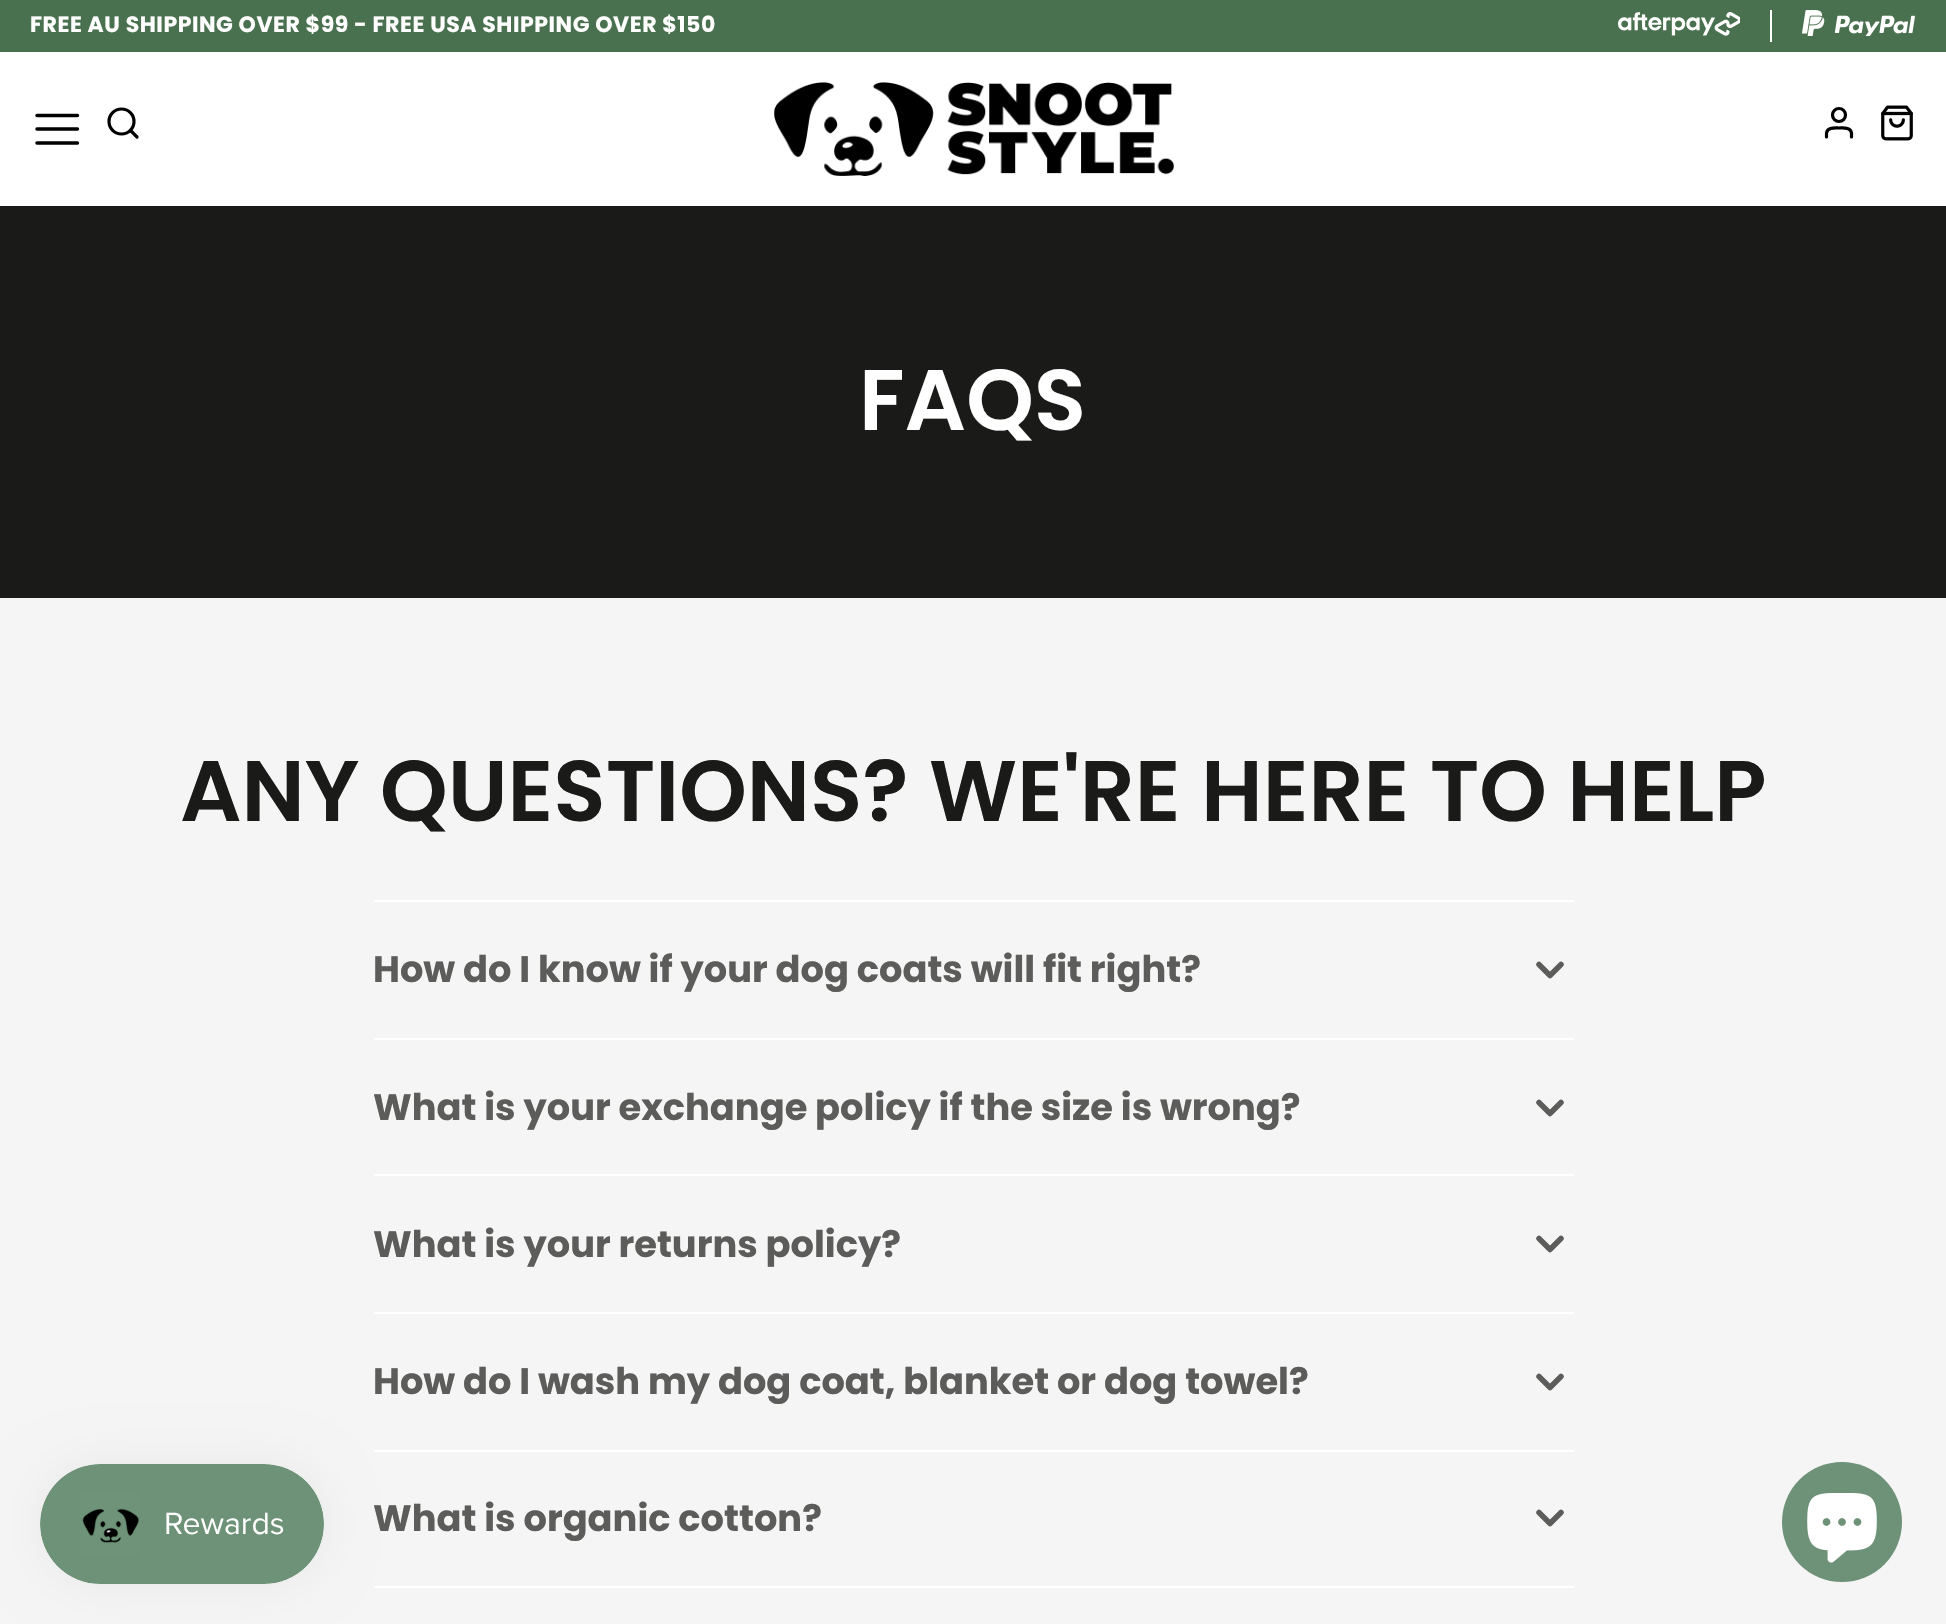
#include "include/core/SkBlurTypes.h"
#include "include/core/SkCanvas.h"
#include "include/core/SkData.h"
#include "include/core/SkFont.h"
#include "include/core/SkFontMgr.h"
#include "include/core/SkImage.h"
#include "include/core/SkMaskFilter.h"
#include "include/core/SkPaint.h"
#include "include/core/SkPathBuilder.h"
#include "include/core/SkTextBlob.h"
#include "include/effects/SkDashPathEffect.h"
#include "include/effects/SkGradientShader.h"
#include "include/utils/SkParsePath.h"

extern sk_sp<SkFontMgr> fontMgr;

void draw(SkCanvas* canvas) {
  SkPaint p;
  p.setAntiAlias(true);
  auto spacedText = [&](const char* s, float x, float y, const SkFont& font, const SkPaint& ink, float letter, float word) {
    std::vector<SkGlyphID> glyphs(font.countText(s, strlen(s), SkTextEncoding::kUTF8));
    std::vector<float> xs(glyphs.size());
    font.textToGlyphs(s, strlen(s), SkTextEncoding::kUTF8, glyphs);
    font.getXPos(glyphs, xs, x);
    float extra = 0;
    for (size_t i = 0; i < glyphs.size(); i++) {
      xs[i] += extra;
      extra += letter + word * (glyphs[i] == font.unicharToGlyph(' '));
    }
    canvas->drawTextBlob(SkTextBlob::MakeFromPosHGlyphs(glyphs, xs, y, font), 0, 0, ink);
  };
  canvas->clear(SK_ColorWHITE);
  p.setColor(SkColorSetRGB(74, 113, 79));
  canvas->drawRect(SkRect::MakeLTRB(0, 0, 1946, 52), p);
  canvas->drawImageRect(SkImages::DeferredFromEncodedData(SkData::MakeFromFileName("images/1.png")), SkRect::MakeLTRB(1618, 12, 1740, 36), SkSamplingOptions());
  p.setColor(SK_ColorWHITE);
  canvas->drawRect(SkRect::MakeLTRB(1770, 10, 1772, 42), p);
  canvas->drawImageRect(SkImages::DeferredFromEncodedData(SkData::MakeFromFileName("images/2.png")), SkRect::MakeLTRB(1802, 10, 1915, 36), SkSamplingOptions());
  p.setStyle(SkPaint::kStroke_Style);
  p.setStrokeWidth(3.4f);
  p.setStrokeCap(SkPaint::kRound_Cap);
  p.setStrokeJoin(SkPaint::kRound_Join);
  p.setColor(SK_ColorBLACK);
  canvas->drawPath(SkPathBuilder().moveTo(37, 129).lineTo(77.5f, 129).moveTo(37, 115.5f).lineTo(77.5f, 115.5f).moveTo(37, 143).lineTo(77.5f, 143).detach(), p);
  p.setStrokeWidth(3.2f);
  p.setStrokeCap(SkPaint::kButt_Cap);
  p.setStrokeJoin(SkPaint::kMiter_Join);
  canvas->drawCircle(121.5f, 121.5f, 12.5f, p);
  p.setStrokeCap(SkPaint::kRound_Cap);
  p.setStrokeJoin(SkPaint::kRound_Join);
  canvas->drawPath(SkPathBuilder().moveTo(137, 137).lineTo(130.5f, 130.5f).detach(), p);
  canvas->drawImageRect(SkImages::DeferredFromEncodedData(SkData::MakeFromFileName("images/3.png")), SkRect::MakeLTRB(774, 82, 1174, 176), SkSamplingOptions());
  p.setStrokeCap(SkPaint::kButt_Cap);
  p.setStrokeJoin(SkPaint::kMiter_Join);
  canvas->drawCircle(1839, 115, 6.5f, p);
  p.setStrokeCap(SkPaint::kRound_Cap);
  p.setStrokeJoin(SkPaint::kRound_Join);
  canvas->drawPath(SkPathBuilder().moveTo(1851.5f, 137).lineTo(1851.5f, 133).cubicTo(1850.5f, 127, 1843.5f, 128, 1839, 128).cubicTo(1834.5f, 128, 1827.5f, 127, 1826.5f, 133).lineTo(1826.5f, 137).detach(), p);
  canvas->drawImageRect(SkImages::DeferredFromEncodedData(SkData::MakeFromFileName("images/4.png")), SkRect::MakeLTRB(1881, 105, 1913, 141), SkSamplingOptions());
  p.setStyle(SkPaint::kFill_Style);
  p.setColor(SkColorSetRGB(26, 27, 24));
  canvas->drawRect(SkRect::MakeLTRB(0, 206, 1946, 598), p);
  p.setColor(SkColorSetRGB(245, 245, 245));
  canvas->drawRect(SkRect::MakeLTRB(0, 598, 1946, 1624), p);
  p.setColor(SK_ColorWHITE);
  canvas->drawRect(SkRect::MakeLTRB(374, 900, 1574, 902), p);
  canvas->drawRect(SkRect::MakeLTRB(374, 1038, 1574, 1040), p);
  p.setStyle(SkPaint::kStroke_Style);
  p.setStrokeWidth(5.5f);
  p.setColor(SkColorSetRGB(92, 92, 90));
  canvas->drawPath(SkPathBuilder().moveTo(1539, 964.5f).lineTo(1550, 975.5f).lineTo(1561, 964.5f).detach(), p);
  p.setStyle(SkPaint::kFill_Style);
  p.setColor(SK_ColorWHITE);
  canvas->drawRect(SkRect::MakeLTRB(374, 1174, 1574, 1176), p);
  p.setStyle(SkPaint::kStroke_Style);
  p.setColor(SkColorSetRGB(92, 92, 90));
  canvas->drawPath(SkPathBuilder().moveTo(1539, 1102.5f).lineTo(1550, 1113.5f).lineTo(1561, 1102.5f).detach(), p);
  p.setStyle(SkPaint::kFill_Style);
  p.setColor(SK_ColorWHITE);
  canvas->drawRect(SkRect::MakeLTRB(374, 1312, 1574, 1314), p);
  p.setStyle(SkPaint::kStroke_Style);
  p.setColor(SkColorSetRGB(92, 92, 90));
  canvas->drawPath(SkPathBuilder().moveTo(1539, 1238.5f).lineTo(1550, 1249.5f).lineTo(1561, 1238.5f).detach(), p);
  p.setStyle(SkPaint::kFill_Style);
  p.setColor(SK_ColorWHITE);
  canvas->drawRect(SkRect::MakeLTRB(374, 1450, 1574, 1452), p);
  p.setStyle(SkPaint::kStroke_Style);
  p.setColor(SkColorSetRGB(92, 92, 90));
  canvas->drawPath(SkPathBuilder().moveTo(1539, 1376.5f).lineTo(1550, 1387.5f).lineTo(1561, 1376.5f).detach(), p);
  p.setStyle(SkPaint::kFill_Style);
  p.setColor(SK_ColorWHITE);
  canvas->drawRect(SkRect::MakeLTRB(374, 1586, 1574, 1588), p);
  p.setStyle(SkPaint::kStroke_Style);
  p.setColor(SkColorSetRGB(92, 92, 90));
  canvas->drawPath(SkPathBuilder().moveTo(1539, 1512.5f).lineTo(1550, 1523.5f).lineTo(1561, 1512.5f).detach(), p);
  p.setStyle(SkPaint::kFill_Style);
  p.setColor(SkColorSetARGB(13, 0, 0, 0));
  p.setMaskFilter(SkMaskFilter::MakeBlur(kNormal_SkBlurStyle, 25));
  canvas->drawRoundRect(SkRect::MakeLTRB(40, 1464, 324, 1584), 60, 60, p);
  p.setMaskFilter(nullptr);
  canvas->drawImageRect(SkImages::DeferredFromEncodedData(SkData::MakeFromFileName("images/5.png")), SkRect::MakeLTRB(40, 1464, 324, 1584), SkSamplingOptions());
  p.setColor(SkColorSetRGB(110, 146, 119));
  canvas->drawCircle(1842, 1522, 60, p);
  canvas->drawImageRect(SkImages::DeferredFromEncodedData(SkData::MakeFromFileName("images/6.png")), SkRect::MakeLTRB(1807, 1493, 1877, 1563), SkSamplingOptions());
  SkFont font1(fontMgr->matchFamilyStyle("Poppins", SkFontStyle::Bold()), 22);
  font1.setSubpixel(true);
  p.setColor(SK_ColorWHITE);
  spacedText("FREE AU SHIPPING OVER $99 - FREE USA SHIPPING OVER $150", 30, 32, font1, p, 0.55f, 0);
  SkFont font2(fontMgr->matchFamilyStyle("Poppins", SkFontStyle(600, SkFontStyle::kNormal_Width, SkFontStyle::kUpright_Slant)), 86);
  font2.setSubpixel(true);
  canvas->drawString("FAQS", 859, 430, font2, p);
  p.setColor(SkColorSetRGB(26, 27, 24));
  canvas->drawString("ANY QUESTIONS? WE'RE HERE TO HELP", 180, 821, font2, p);
  SkFont font3(fontMgr->matchFamilyStyle("Poppins", SkFontStyle::Bold()), 36.8f);
  font3.setSubpixel(true);
  p.setColor(SkColorSetRGB(92, 92, 90));
  canvas->drawString("How do I know if your dog coats will fit right?", 373, 982, font3, p);
  canvas->drawString("What is your exchange policy if the size is wrong?", 373, 1120, font3, p);
  canvas->drawString("What is your returns policy?", 373, 1257, font3, p);
  canvas->drawString("How do I wash my dog coat, blanket or dog towel?", 373, 1394, font3, p);
  canvas->drawString("What is organic cotton?", 373, 1531, font3, p);
}
